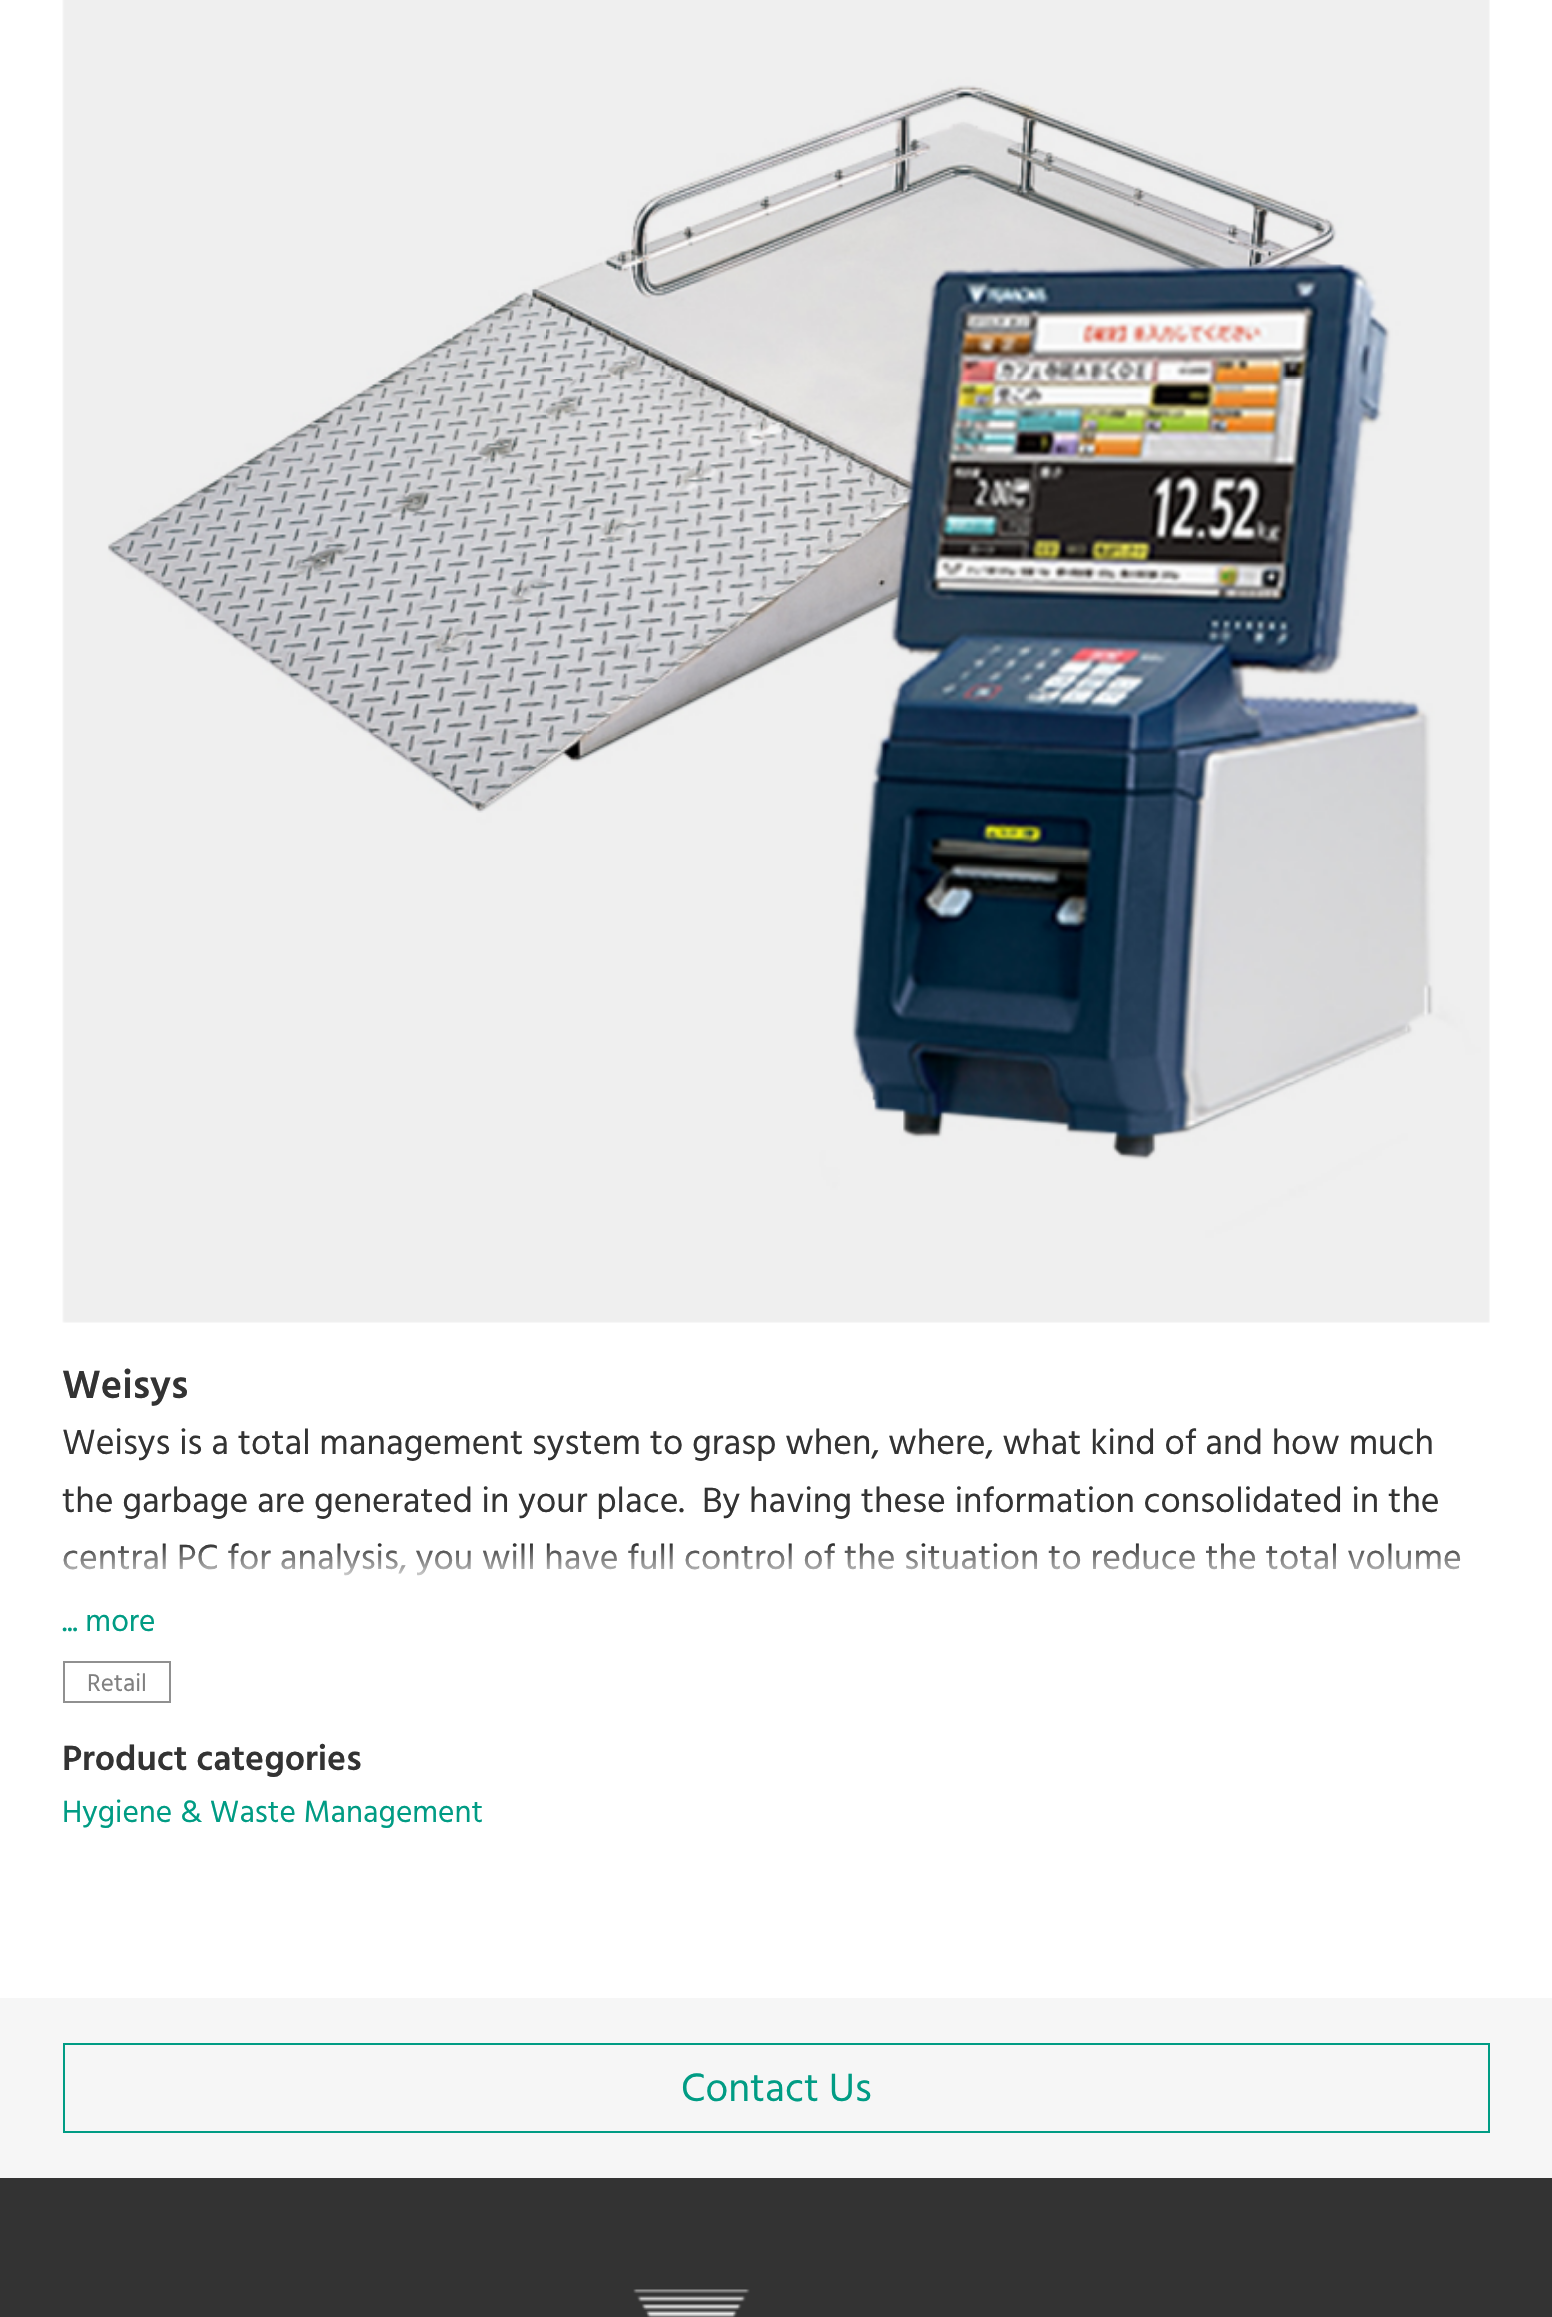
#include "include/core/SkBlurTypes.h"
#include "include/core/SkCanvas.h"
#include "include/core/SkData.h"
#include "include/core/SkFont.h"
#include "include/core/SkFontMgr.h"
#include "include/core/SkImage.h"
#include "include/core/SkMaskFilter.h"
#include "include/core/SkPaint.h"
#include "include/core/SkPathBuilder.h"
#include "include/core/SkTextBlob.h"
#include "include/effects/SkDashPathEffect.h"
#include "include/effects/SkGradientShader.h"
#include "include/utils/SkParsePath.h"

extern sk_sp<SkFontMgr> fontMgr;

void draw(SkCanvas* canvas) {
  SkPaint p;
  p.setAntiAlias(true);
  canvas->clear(SK_ColorWHITE);
  canvas->drawImageRect(SkImages::DeferredFromEncodedData(SkData::MakeFromFileName("images/1.png")), SkRect::MakeLTRB(62, 0, 1490, 1323), SkSamplingOptions());
  p.setStyle(SkPaint::kStroke_Style);
  p.setStrokeWidth(2);
  p.setColor(SkColorSetRGB(144, 144, 144));
  canvas->drawRect(SkRect::MakeLTRB(64, 1662, 170, 1702), p);
  p.setStyle(SkPaint::kFill_Style);
  p.setColor(SkColorSetRGB(246, 246, 246));
  canvas->drawRect(SkRect::MakeLTRB(0, 1998, 1552, 2178), p);
  p.setStyle(SkPaint::kStroke_Style);
  p.setColor(SkColorSetRGB(0, 156, 132));
  canvas->drawRect(SkRect::MakeLTRB(64, 2044, 1489, 2132), p);
  p.setStyle(SkPaint::kFill_Style);
  p.setColor(SkColorSetRGB(51, 51, 51));
  canvas->drawRect(SkRect::MakeLTRB(0, 2178, 1552, 2317), p);
  canvas->drawImageRect(SkImages::DeferredFromEncodedData(SkData::MakeFromFileName("images/2.png")), SkRect::MakeLTRB(633, 2289, 750, 2317), SkSamplingOptions());
  SkFont font1(fontMgr->matchFamilyStyle("Hind", SkFontStyle(600, SkFontStyle::kNormal_Width, SkFontStyle::kUpright_Slant)), 40.5f);
  font1.setSubpixel(true);
  canvas->drawString("Weisys", 62, 1398, font1, p);
  SkFont font2(fontMgr->matchFamilyStyle("Hind", SkFontStyle::Normal()), 36);
  font2.setSubpixel(true);
  canvas->drawString("Weisys is a total management system to grasp when, where, what kind of and how much", 62, 1454, font2, p);
  canvas->drawString("the garbage are generated in your place.  By having these information consolidated in the", 62, 1512, font2, p);
  canvas->drawString("central PC for analysis, you will have full control of the situation to reduce the total volume", 62, 1569, font2, p);
  {
    const SkColor colors[] = {SkColorSetARGB(0, 255, 255, 255), SK_ColorWHITE};
    const float stops[] = {0, 0.4f};
    const SkPoint ends[] = {{776, 1544}, {776, 1649}};
    p.setShader(SkGradientShader::MakeLinear(ends, colors, stops, 2, SkTileMode::kClamp));
    p.setAlpha(255);
  }
  canvas->drawRect(SkRect::MakeLTRB(63, 1545, 1461, 1576), p);
  SkFont font3(fontMgr->matchFamilyStyle("Hind", SkFontStyle::Normal()), 31.5f);
  font3.setSubpixel(true);
  p.setShader(nullptr);
  p.setColor(SkColorSetRGB(0, 156, 132));
  canvas->drawString("... more", 62, 1631, font3, p);
  SkFont font4(fontMgr->matchFamilyStyle("Hind", SkFontStyle::Normal()), 25);
  font4.setSubpixel(true);
  p.setColor(SkColorSetRGB(128, 128, 128));
  canvas->drawString("Retail", 87, 1691, font4, p);
  SkFont font5(fontMgr->matchFamilyStyle("Hind", SkFontStyle(600, SkFontStyle::kNormal_Width, SkFontStyle::kUpright_Slant)), 36);
  font5.setSubpixel(true);
  p.setColor(SkColorSetRGB(51, 51, 51));
  canvas->drawString("Product categories", 62, 1770, font5, p);
  p.setColor(SkColorSetRGB(0, 156, 132));
  canvas->drawString("Hygiene & Waste Management", 62, 1822, font3, p);
  SkFont font6(fontMgr->matchFamilyStyle("Hind", SkFontStyle::Normal()), 40.5f);
  font6.setSubpixel(true);
  canvas->drawString("Contact Us", 681, 2101, font6, p);
}
